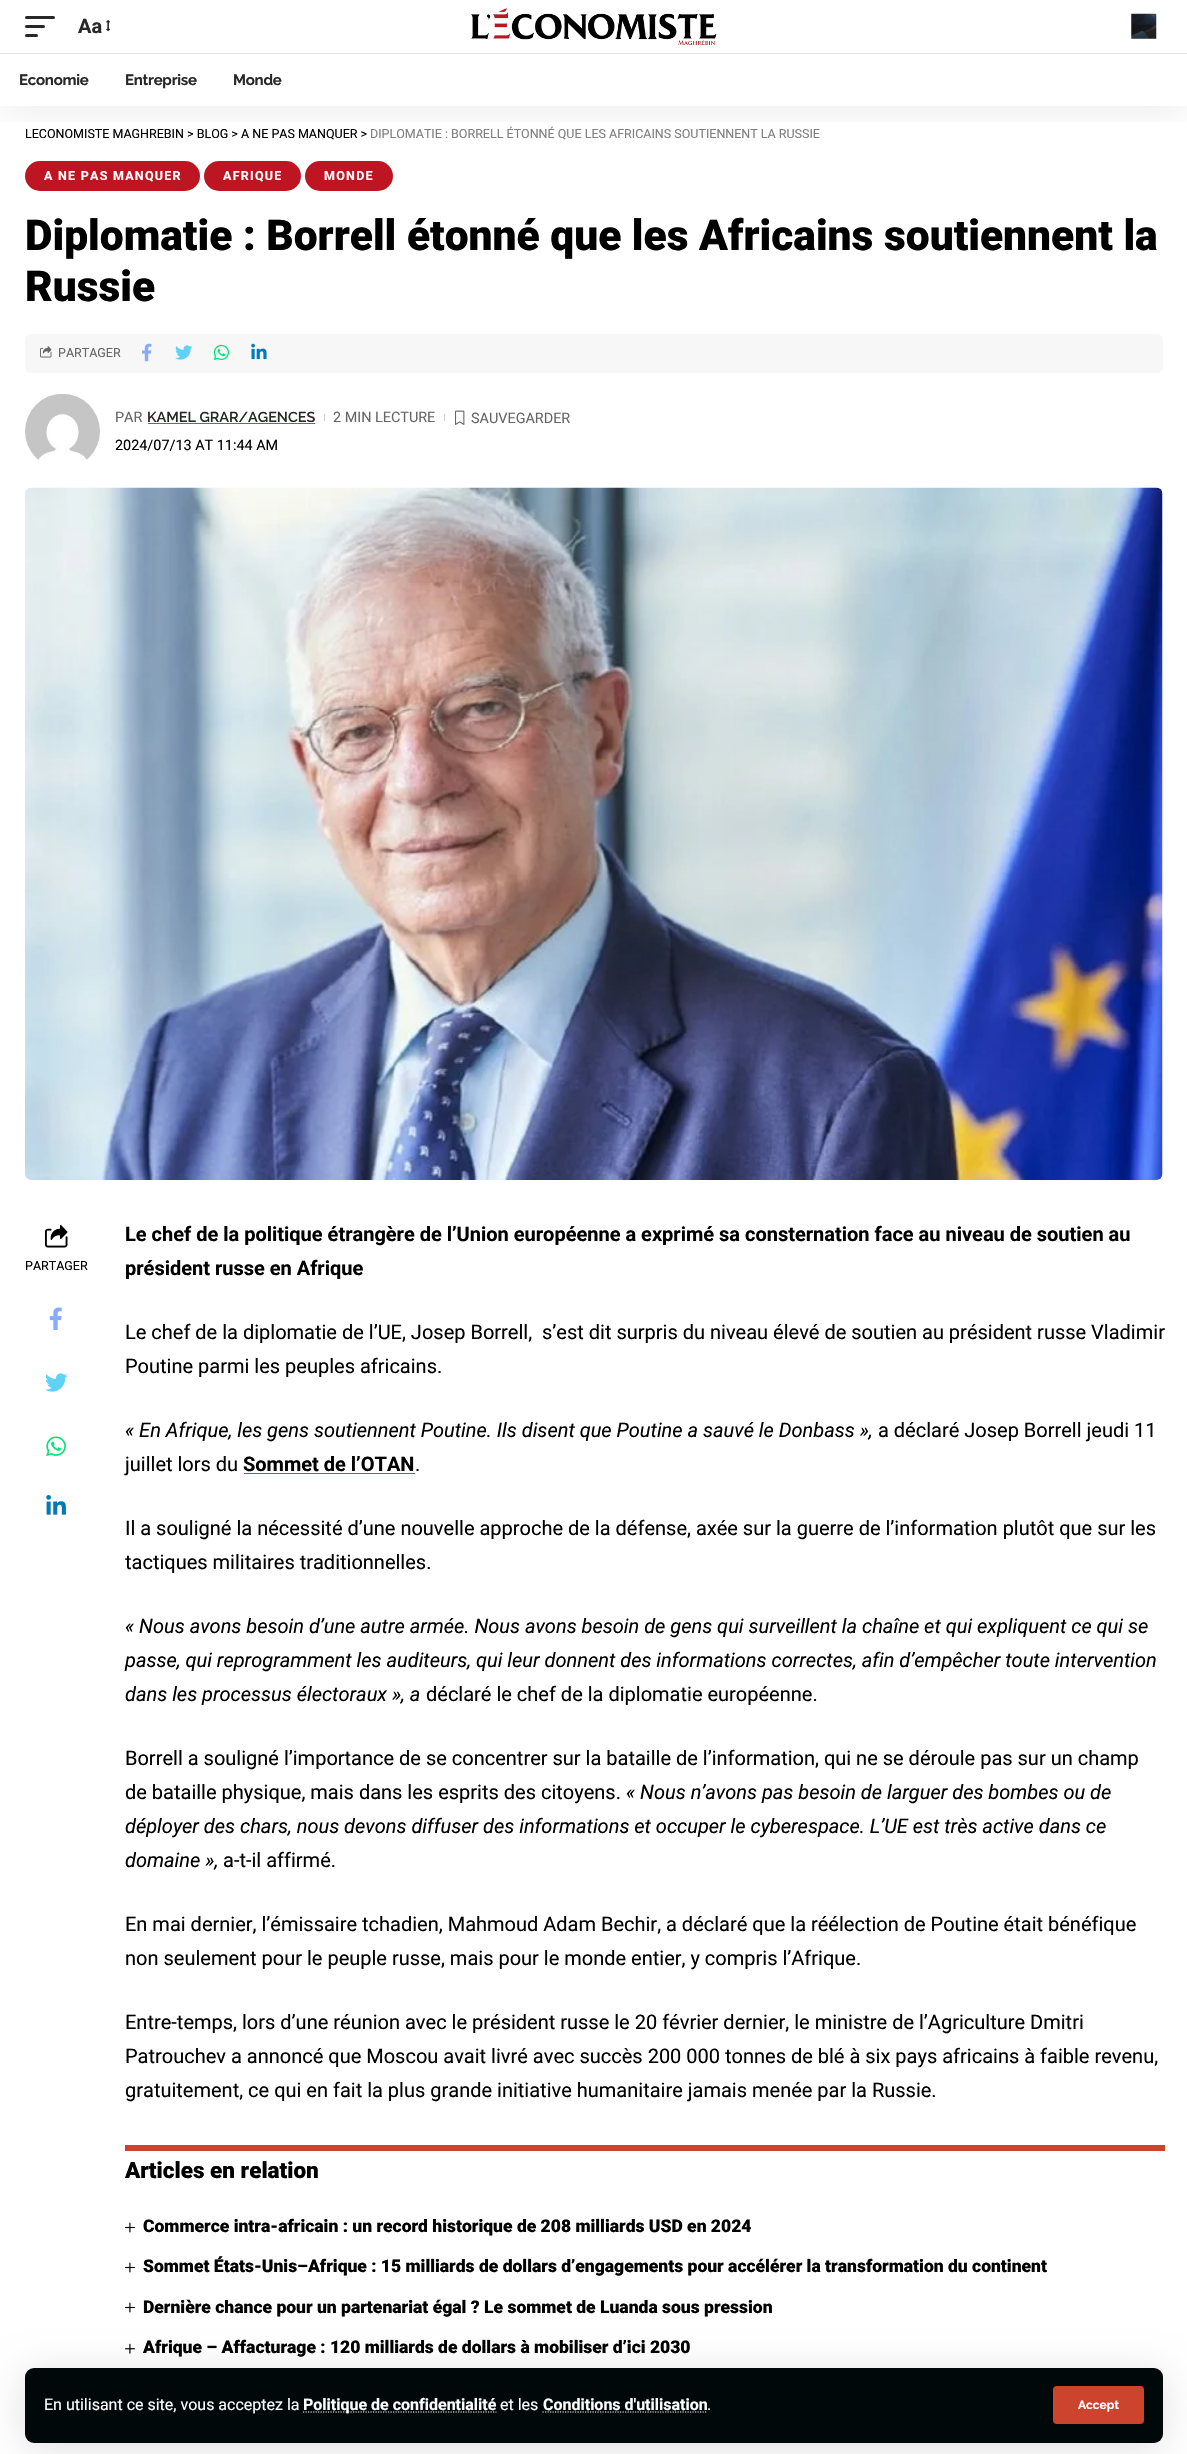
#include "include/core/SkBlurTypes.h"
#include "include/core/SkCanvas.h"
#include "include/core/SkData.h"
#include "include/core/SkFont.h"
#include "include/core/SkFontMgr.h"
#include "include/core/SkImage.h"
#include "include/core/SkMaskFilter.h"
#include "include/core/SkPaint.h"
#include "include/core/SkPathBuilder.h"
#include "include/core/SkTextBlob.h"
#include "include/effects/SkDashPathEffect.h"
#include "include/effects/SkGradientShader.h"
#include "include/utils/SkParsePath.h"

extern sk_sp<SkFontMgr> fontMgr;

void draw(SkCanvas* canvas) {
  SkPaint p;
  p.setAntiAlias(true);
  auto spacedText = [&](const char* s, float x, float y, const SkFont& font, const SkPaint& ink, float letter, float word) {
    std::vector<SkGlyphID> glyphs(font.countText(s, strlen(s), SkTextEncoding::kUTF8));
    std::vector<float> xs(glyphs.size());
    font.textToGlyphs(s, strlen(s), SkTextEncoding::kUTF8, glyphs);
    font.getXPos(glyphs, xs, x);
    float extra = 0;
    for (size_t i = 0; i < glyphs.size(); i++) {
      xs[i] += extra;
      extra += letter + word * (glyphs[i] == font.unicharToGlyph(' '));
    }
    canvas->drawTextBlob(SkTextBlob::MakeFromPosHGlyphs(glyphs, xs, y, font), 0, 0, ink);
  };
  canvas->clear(SK_ColorWHITE);
  p.setColor(SkColorSetRGB(189, 22, 34));
  canvas->drawRoundRect(SkRect::MakeLTRB(25, 161, 200, 191), 15, 15, p);
  canvas->drawRoundRect(SkRect::MakeLTRB(204, 161, 301, 191), 15, 15, p);
  canvas->drawRoundRect(SkRect::MakeLTRB(305, 161, 393, 191), 15, 15, p);
  canvas->save();
  canvas->clipRect(SkRect::MakeLTRB(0, 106, 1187, 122));
  p.setColor(SkColorSetARGB(18, 0, 0, 0));
  p.setMaskFilter(SkMaskFilter::MakeBlur(kNormal_SkBlurStyle, 19));
  canvas->drawRect(SkRect::MakeLTRB(0, 5, 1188, 111), p);
  p.setMaskFilter(nullptr);
  canvas->restore();
  p.setColor(SkColorSetRGB(40, 40, 40));
  canvas->drawRoundRect(SkRect::MakeLTRB(25, 16, 55, 19), 1.5f, 1.5f, p);
  canvas->drawRoundRect(SkRect::MakeLTRB(25, 25, 45, 28), 1.5f, 1.5f, p);
  canvas->drawRoundRect(SkRect::MakeLTRB(25, 34, 38, 37), 1.5f, 1.5f, p);
  canvas->drawImageRect(SkImages::DeferredFromEncodedData(SkData::MakeFromFileName("images/1.png")), SkRect::MakeLTRB(106, 20, 111, 32), SkSamplingOptions());
  canvas->drawImageRect(SkImages::DeferredFromEncodedData(SkData::MakeFromFileName("images/2.png")), SkRect::MakeLTRB(471, 8, 717, 45), SkSamplingOptions());
  canvas->drawImageRect(SkImages::DeferredFromEncodedData(SkData::MakeFromFileName("images/3.png")), SkRect::MakeLTRB(1131, 13, 1157, 39), SkSamplingOptions());
  p.setColor(SkColorSetRGB(228, 228, 228));
  canvas->drawRect(SkRect::MakeLTRB(0, 53, 1187, 54), p);
  canvas->drawImageRect(SkImages::DeferredFromEncodedData(SkData::MakeFromFileName("images/18.png")), SkRect::MakeLTRB(125, 2343, 135, 2354), SkSamplingOptions());
  p.setColor(SkColorSetARGB(31, 0, 0, 0));
  p.setMaskFilter(SkMaskFilter::MakeBlur(kNormal_SkBlurStyle, 19));
  canvas->drawRoundRect(SkRect::MakeLTRB(25, 2373, 1163, 2448), 9, 9, p);
  p.setMaskFilter(nullptr);
  p.setColor(SkColorSetRGB(0, 8, 10));
  canvas->drawRoundRect(SkRect::MakeLTRB(25, 2368, 1163, 2443), 9, 9, p);
  p.setStyle(SkPaint::kStroke_Style);
  p.setStrokeWidth(1.2f);
  p.setColor(SK_ColorWHITE);
  p.setPathEffect(SkDashPathEffect::Make({{1.25f, 1.25f}}, 0));
  canvas->drawPath(SkPathBuilder().moveTo(303, 2412).lineTo(496.5f, 2412).detach(), p);
  p.setPathEffect(nullptr);
  p.setPathEffect(SkDashPathEffect::Make({{1.25f, 1.25f}}, 0));
  canvas->drawPath(SkPathBuilder().moveTo(542.5f, 2412).lineTo(707.5f, 2412).detach(), p);
  p.setPathEffect(nullptr);
  p.setStyle(SkPaint::kFill_Style);
  p.setColor(SkColorSetRGB(204, 67, 46));
  canvas->drawRoundRect(SkRect::MakeLTRB(1053, 2386, 1144, 2424), 4, 4, p);
  p.setColor(SkColorSetRGB(247, 247, 247));
  canvas->drawRoundRect(SkRect::MakeLTRB(25, 334, 1163, 373), 6, 6, p);
  canvas->drawImageRect(SkImages::DeferredFromEncodedData(SkData::MakeFromFileName("images/4.png")), SkRect::MakeLTRB(40, 346, 52, 358), SkSamplingOptions());
  canvas->drawImageRect(SkImages::DeferredFromEncodedData(SkData::MakeFromFileName("images/5.png")), SkRect::MakeLTRB(142, 343, 152, 362), SkSamplingOptions());
  canvas->drawImageRect(SkImages::DeferredFromEncodedData(SkData::MakeFromFileName("images/6.png")), SkRect::MakeLTRB(175, 345, 193, 360), SkSamplingOptions());
  canvas->drawImageRect(SkImages::DeferredFromEncodedData(SkData::MakeFromFileName("images/7.png")), SkRect::MakeLTRB(213, 344, 230, 361), SkSamplingOptions());
  canvas->drawImageRect(SkImages::DeferredFromEncodedData(SkData::MakeFromFileName("images/8.png")), SkRect::MakeLTRB(251, 343, 267, 360), SkSamplingOptions());
  canvas->drawImageRect(SkImages::DeferredFromEncodedData(SkData::MakeFromFileName("images/9.png")), SkRect::MakeLTRB(25, 394, 100, 460), SkSamplingOptions());
  p.setColor(SkColorSetRGB(204, 67, 46));
  canvas->drawRect(SkRect::MakeLTRB(148, 423, 315, 424), p);
  p.setColor(SkColorSetRGB(209, 209, 209));
  canvas->drawRect(SkRect::MakeLTRB(324, 414, 325, 421), p);
  canvas->drawRect(SkRect::MakeLTRB(444, 414, 445, 421), p);
  canvas->drawImageRect(SkImages::DeferredFromEncodedData(SkData::MakeFromFileName("images/10.png")), SkRect::MakeLTRB(455, 410, 465, 425), SkSamplingOptions());
  canvas->drawImageRect(SkImages::DeferredFromEncodedData(SkData::MakeFromFileName("images/11.png")), SkRect::MakeLTRB(25, 487, 1163, 1180), SkSamplingOptions());
  canvas->drawImageRect(SkImages::DeferredFromEncodedData(SkData::MakeFromFileName("images/12.png")), SkRect::MakeLTRB(45, 1225, 68, 1248), SkSamplingOptions());
  canvas->drawImageRect(SkImages::DeferredFromEncodedData(SkData::MakeFromFileName("images/13.png")), SkRect::MakeLTRB(49, 1307, 62, 1330), SkSamplingOptions());
  canvas->drawImageRect(SkImages::DeferredFromEncodedData(SkData::MakeFromFileName("images/14.png")), SkRect::MakeLTRB(45, 1373, 68, 1392), SkSamplingOptions());
  canvas->drawImageRect(SkImages::DeferredFromEncodedData(SkData::MakeFromFileName("images/15.png")), SkRect::MakeLTRB(46, 1436, 66, 1456), SkSamplingOptions());
  canvas->drawImageRect(SkImages::DeferredFromEncodedData(SkData::MakeFromFileName("images/16.png")), SkRect::MakeLTRB(46, 1495, 66, 1515), SkSamplingOptions());
  p.setColor(SkColorSetRGB(204, 67, 46));
  canvas->drawRect(SkRect::MakeLTRB(244, 1473, 415, 1474), p);
  canvas->drawRect(SkRect::MakeLTRB(125, 2145, 1165, 2151), p);
  canvas->drawImageRect(SkImages::DeferredFromEncodedData(SkData::MakeFromFileName("images/17.png")), SkRect::MakeLTRB(125, 2222, 135, 2233), SkSamplingOptions());
  canvas->drawImageRect(SkImages::DeferredFromEncodedData(SkData::MakeFromFileName("images/17.png")), SkRect::MakeLTRB(125, 2262, 135, 2273), SkSamplingOptions());
  canvas->drawImageRect(SkImages::DeferredFromEncodedData(SkData::MakeFromFileName("images/17.png")), SkRect::MakeLTRB(125, 2302, 135, 2313), SkSamplingOptions());
  SkFont font1(fontMgr->matchFamilyStyle("Roboto", SkFontStyle::Bold()), 20);
  font1.setSubpixel(true);
  p.setColor(SkColorSetRGB(40, 40, 40));
  canvas->drawString("Aa", 78, 33, font1, p);
  SkFont font2(fontMgr->matchFamilyStyle("Raleway", SkFontStyle::Bold()), 15);
  font2.setSubpixel(true);
  spacedText("Economie", 19, 85, font2, p, -0.25f, 0);
  spacedText("Entreprise", 125, 85, font2, p, -0.25f, 0);
  spacedText("Monde", 233, 85, font2, p, -0.25f, 0);
  SkFont font3(fontMgr->matchFamilyStyle("Roboto", SkFontStyle::Normal()), 16);
  font3.setSubpixel(true);
  p.setColor(SK_ColorWHITE);
  canvas->drawString("En utilisant ce site, vous acceptez la", 44, 2410, font3, p);
  SkFont font4(fontMgr->matchFamilyStyle("Roboto", SkFontStyle::Bold()), 16);
  font4.setSubpixel(true);
  canvas->drawString("Politique de confidentialité", 303, 2410, font4, p);
  canvas->drawString("et les", 500, 2410, font3, p);
  canvas->drawString("Conditions d'utilisation", 543, 2410, font4, p);
  canvas->drawString(".", 707, 2410, font3, p);
  SkFont font5(fontMgr->matchFamilyStyle("Raleway", SkFontStyle::Bold()), 12);
  font5.setSubpixel(true);
  canvas->drawString("Accept", 1078, 2409, font5, p);
  SkFont font6(fontMgr->matchFamilyStyle("Roboto", SkFontStyle::Normal()), 12.5f);
  font6.setSubpixel(true);
  p.setColor(SK_ColorBLACK);
  canvas->drawString("LECONOMISTE MAGHREBIN > BLOG > A NE PAS MANQUER >", 25, 138, font6, p);
  p.setColor(SkColorSetRGB(128, 128, 128));
  canvas->drawString("DIPLOMATIE : BORRELL ÉTONNÉ QUE LES AFRICAINS SOUTIENNENT LA RUSSIE", 370, 138, font6, p);
  SkFont font7(fontMgr->matchFamilyStyle("Roboto", SkFontStyle::Bold()), 12.5f);
  font7.setSubpixel(true);
  p.setColor(SK_ColorWHITE);
  spacedText("A NE PAS MANQUER", 44, 180, font7, p, 1.25f, 0);
  spacedText("AFRIQUE", 223, 180, font7, p, 1.25f, 0);
  spacedText("MONDE", 324, 180, font7, p, 1.25f, 0);
  SkFont font8(fontMgr->matchFamilyStyle("Roboto", SkFontStyle(900, SkFontStyle::kNormal_Width, SkFontStyle::kUpright_Slant)), 42.5f);
  font8.setSubpixel(true);
  p.setColor(SK_ColorBLACK);
  canvas->drawString("Diplomatie : Borrell étonné que les Africains soutiennent la", 25, 250, font8, p);
  canvas->drawString("Russie", 25, 301, font8, p);
  p.setColor(SkColorSetRGB(102, 102, 102));
  canvas->drawString("PARTAGER", 58, 357, font6, p);
  SkFont font9(fontMgr->matchFamilyStyle("Roboto", SkFontStyle::Normal()), 14.4f);
  font9.setSubpixel(true);
  canvas->drawString("PAR", 115, 422, font9, p);
  SkFont font10(fontMgr->matchFamilyStyle("Raleway", SkFontStyle(600, SkFontStyle::kNormal_Width, SkFontStyle::kUpright_Slant)), 14.4f);
  font10.setSubpixel(true);
  p.setColor(SkColorSetRGB(40, 40, 40));
  canvas->drawString("KAMEL GRAR/AGENCES", 147, 422, font10, p);
  p.setColor(SkColorSetRGB(102, 102, 102));
  canvas->drawString("2 MIN LECTURE", 333, 422, font9, p);
  canvas->drawString("SAUVEGARDER", 471, 423, font9, p);
  p.setColor(SK_ColorBLACK);
  canvas->drawString("2024/07/13 AT 11:44 AM", 115, 450, font9, p);
  canvas->drawString("PARTAGER", 25, 1270, font6, p);
  canvas->drawString("Le chef de la politique étrangère de l’Union européenne a exprimé sa consternation face au niveau de soutien au", 125, 1241, font1, p);
  canvas->drawString("président russe en Afrique", 125, 1275, font1, p);
  SkFont font11(fontMgr->matchFamilyStyle("Roboto", SkFontStyle::Normal()), 20);
  font11.setSubpixel(true);
  canvas->drawString("Le chef de la diplomatie de l’UE, Josep Borrell,  s’est dit surpris du niveau élevé de soutien au président russe Vladimir", 125, 1339, font11, p);
  canvas->drawString("Poutine parmi les peuples africains.", 125, 1373, font11, p);
  SkFont font12(fontMgr->matchFamilyStyle("Roboto", SkFontStyle::Italic()), 20);
  font12.setSubpixel(true);
  canvas->drawString("« En Afrique, les gens soutiennent Poutine. Ils disent que Poutine a sauvé le Donbass »,", 125, 1437, font12, p);
  canvas->drawString("a déclaré Josep Borrell jeudi 11", 878, 1437, font11, p);
  canvas->drawString("juillet lors du", 125, 1471, font11, p);
  canvas->drawString("Sommet de l’OTAN", 243, 1471, font1, p);
  canvas->drawString(".", 415, 1471, font11, p);
  canvas->drawString("Il a souligné la nécessité d’une nouvelle approche de la défense, axée sur la guerre de l’information plutôt que sur les", 125, 1535, font11, p);
  canvas->drawString("tactiques militaires traditionnelles.", 125, 1569, font11, p);
  canvas->drawString("« Nous avons besoin d’une autre armée. Nous avons besoin de gens qui surveillent la chaîne et qui expliquent ce qui se", 125, 1633, font12, p);
  canvas->drawString("passe, qui reprogramment les auditeurs, qui leur donnent des informations correctes, afin d’empêcher toute intervention", 125, 1667, font12, p);
  canvas->drawString("dans les processus électoraux », a", 125, 1701, font12, p);
  canvas->drawString("déclaré le chef de la diplomatie européenne.", 426, 1701, font11, p);
  canvas->drawString("Borrell a souligné l’importance de se concentrer sur la bataille de l’information, qui ne se déroule pas sur un champ", 125, 1765, font11, p);
  canvas->drawString("de bataille physique, mais dans les esprits des citoyens.", 125, 1799, font11, p);
  canvas->drawString("« Nous n’avons pas besoin de larguer des bombes ou de", 626, 1799, font12, p);
  canvas->drawString("déployer des chars, nous devons diffuser des informations et occuper le cyberespace. L’UE est très active dans ce", 125, 1833, font12, p);
  canvas->drawString("domaine »,", 125, 1867, font12, p);
  canvas->drawString("a-t-il affirmé.", 223, 1867, font11, p);
  canvas->drawString("En mai dernier, l’émissaire tchadien, Mahmoud Adam Bechir, a déclaré que la réélection de Poutine était bénéfique", 125, 1931, font11, p);
  canvas->drawString("non seulement pour le peuple russe, mais pour le monde entier, y compris l’Afrique.", 125, 1965, font11, p);
  canvas->drawString("Entre-temps, lors d’une réunion avec le président russe le 20 février dernier, le ministre de l’Agriculture Dmitri", 125, 2029, font11, p);
  canvas->drawString("Patrouchev a annoncé que Moscou avait livré avec succès 200 000 tonnes de blé à six pays africains à faible revenu,", 125, 2063, font11, p);
  canvas->drawString("gratuitement, ce qui en fait la plus grande initiative humanitaire jamais menée par la Russie.", 125, 2097, font11, p);
  SkFont font13(fontMgr->matchFamilyStyle("Roboto", SkFontStyle(900, SkFontStyle::kNormal_Width, SkFontStyle::kUpright_Slant)), 22.5f);
  font13.setSubpixel(true);
  canvas->drawString("Articles en relation", 125, 2178, font13, p);
  SkFont font14(fontMgr->matchFamilyStyle("Roboto", SkFontStyle(900, SkFontStyle::kNormal_Width, SkFontStyle::kUpright_Slant)), 17.5f);
  font14.setSubpixel(true);
  canvas->drawString("Commerce intra-africain : un record historique de 208 milliards USD en 2024", 143, 2232, font14, p);
  canvas->drawString("Sommet États-Unis–Afrique : 15 milliards de dollars d’engagements pour accélérer la transformation du continent", 143, 2272, font14, p);
  canvas->drawString("Dernière chance pour un partenariat égal ? Le sommet de Luanda sous pression", 143, 2313, font14, p);
  canvas->drawString("Afrique – Affacturage : 120 milliards de dollars à mobiliser d’ici 2030", 143, 2353, font14, p);
}
